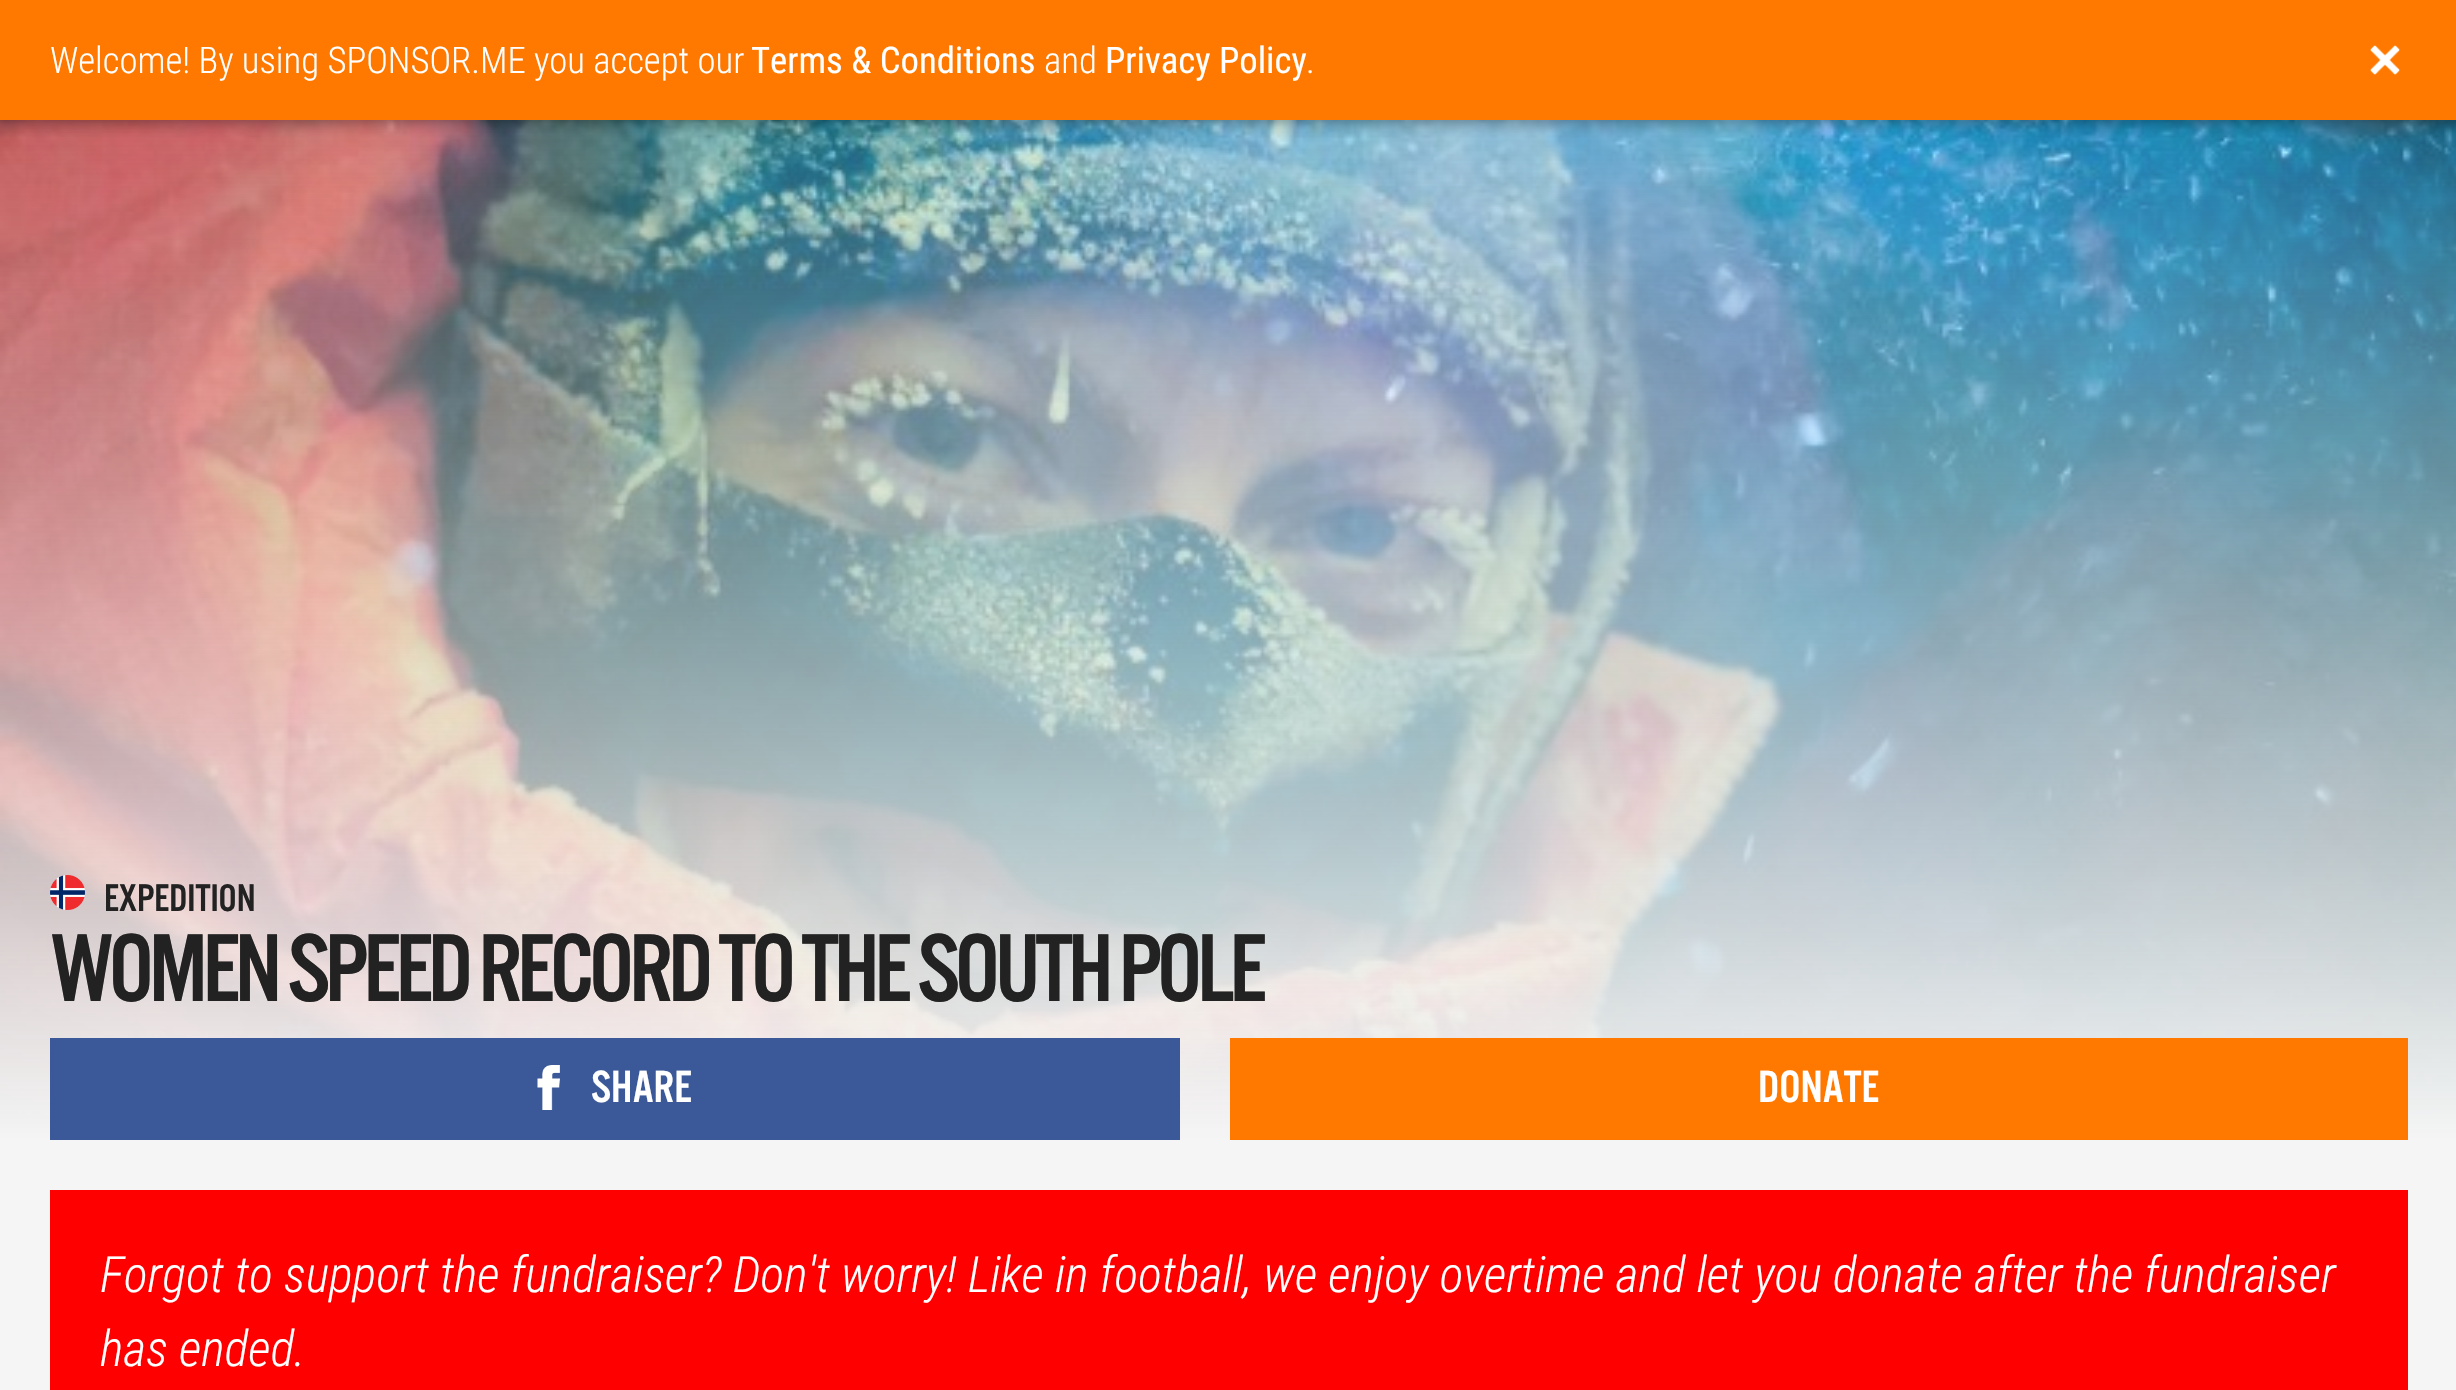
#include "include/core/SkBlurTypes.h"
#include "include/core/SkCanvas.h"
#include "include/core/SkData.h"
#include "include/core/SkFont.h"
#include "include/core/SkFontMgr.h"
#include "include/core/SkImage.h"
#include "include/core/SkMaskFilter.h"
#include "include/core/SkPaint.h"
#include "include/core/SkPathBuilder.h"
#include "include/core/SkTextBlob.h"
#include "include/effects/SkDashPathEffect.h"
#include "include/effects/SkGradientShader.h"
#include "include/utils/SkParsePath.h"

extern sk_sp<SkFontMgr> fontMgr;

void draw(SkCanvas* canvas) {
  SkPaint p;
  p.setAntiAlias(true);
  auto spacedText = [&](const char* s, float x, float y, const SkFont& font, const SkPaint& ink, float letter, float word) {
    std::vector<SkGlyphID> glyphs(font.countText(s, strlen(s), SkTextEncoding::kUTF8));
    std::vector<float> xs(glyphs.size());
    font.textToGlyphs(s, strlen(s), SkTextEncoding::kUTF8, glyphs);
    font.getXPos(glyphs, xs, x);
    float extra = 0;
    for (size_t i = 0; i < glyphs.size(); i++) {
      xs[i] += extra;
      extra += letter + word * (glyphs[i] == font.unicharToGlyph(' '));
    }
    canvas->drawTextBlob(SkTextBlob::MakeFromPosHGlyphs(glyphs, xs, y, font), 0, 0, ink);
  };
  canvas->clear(SkColorSetRGB(245, 245, 245));
  canvas->drawImageRect(SkImages::DeferredFromEncodedData(SkData::MakeFromFileName("images/2.png")), SkRect::MakeLTRB(0, 120, 2456, 1140), SkSamplingOptions());
  p.setColor(SkColorSetARGB(51, 0, 0, 0));
  p.setMaskFilter(SkMaskFilter::MakeBlur(kNormal_SkBlurStyle, 5));
  canvas->drawRect(SkRect::MakeLTRB(0, 3, 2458, 123), p);
  p.setMaskFilter(nullptr);
  p.setColor(SkColorSetRGB(255, 120, 0));
  canvas->drawRect(SkRect::MakeLTRB(0, 0, 2456, 120), p);
  canvas->drawImageRect(SkImages::DeferredFromEncodedData(SkData::MakeFromFileName("images/1.png")), SkRect::MakeLTRB(2370, 45, 2400, 75), SkSamplingOptions());
  canvas->drawImageRect(SkImages::DeferredFromEncodedData(SkData::MakeFromFileName("images/3.png")), SkRect::MakeLTRB(50, 875, 85, 910), SkSamplingOptions());
  p.setColor(SkColorSetRGB(59, 89, 152));
  canvas->drawRect(SkRect::MakeLTRB(50, 1038, 1180, 1140), p);
  canvas->drawImageRect(SkImages::DeferredFromEncodedData(SkData::MakeFromFileName("images/4.png")), SkRect::MakeLTRB(537, 1065, 560, 1110), SkSamplingOptions());
  p.setColor(SkColorSetRGB(255, 120, 0));
  canvas->drawRect(SkRect::MakeLTRB(1230, 1038, 2408, 1140), p);
  p.setColor(SkColorSetRGB(255, 0, 0));
  canvas->drawRect(SkRect::MakeLTRB(50, 1190, 2408, 1390), p);
  SkFont font1(fontMgr->matchFamilyStyle("Roboto Condensed", SkFontStyle(300, SkFontStyle::kNormal_Width, SkFontStyle::kUpright_Slant)), 36.7f);
  font1.setSubpixel(true);
  p.setColor(SK_ColorWHITE);
  canvas->drawString("Welcome! By using SPONSOR.ME you accept our", 50, 73, font1, p);
  SkFont font2(fontMgr->matchFamilyStyle("Roboto Condensed", SkFontStyle::Normal()), 36.7f);
  font2.setSubpixel(true);
  canvas->drawString("Terms & Conditions", 751, 73, font2, p);
  canvas->drawString("and", 1044, 73, font1, p);
  canvas->drawString("Privacy Policy", 1105, 73, font2, p);
  canvas->drawString(".", 1306, 73, font1, p);
  SkFont font3(fontMgr->matchFamilyStyle("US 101", SkFontStyle::Normal()), 40);
  font3.setSubpixel(true);
  p.setColor(SkColorSetRGB(34, 34, 34));
  canvas->drawString("EXPEDITION", 104, 911, font3, p);
  SkFont font4(fontMgr->matchFamilyStyle("US 101", SkFontStyle::Normal()), 100);
  font4.setSubpixel(true);
  spacedText("WOMEN SPEED RECORD TO THE SOUTH POLE", 50, 1001, font4, p, -5, 0);
  SkFont font5(fontMgr->matchFamilyStyle("US 101", SkFontStyle::Normal()), 47);
  font5.setSubpixel(true);
  p.setColor(SK_ColorWHITE);
  canvas->drawString("SHARE", 591, 1102, font5, p);
  canvas->drawString("DONATE", 1758, 1102, font5, p);
  SkFont font6(fontMgr->matchFamilyStyle("Roboto Condensed", SkFontStyle(300, SkFontStyle::kNormal_Width, SkFontStyle::kItalic_Slant)), 50);
  font6.setSubpixel(true);
  canvas->drawString("Forgot to support the fundraiser? Don't worry! Like in football, we enjoy overtime and let you donate after the fundraiser", 100, 1292, font6, p);
  canvas->drawString("has ended.", 100, 1366, font6, p);
}
